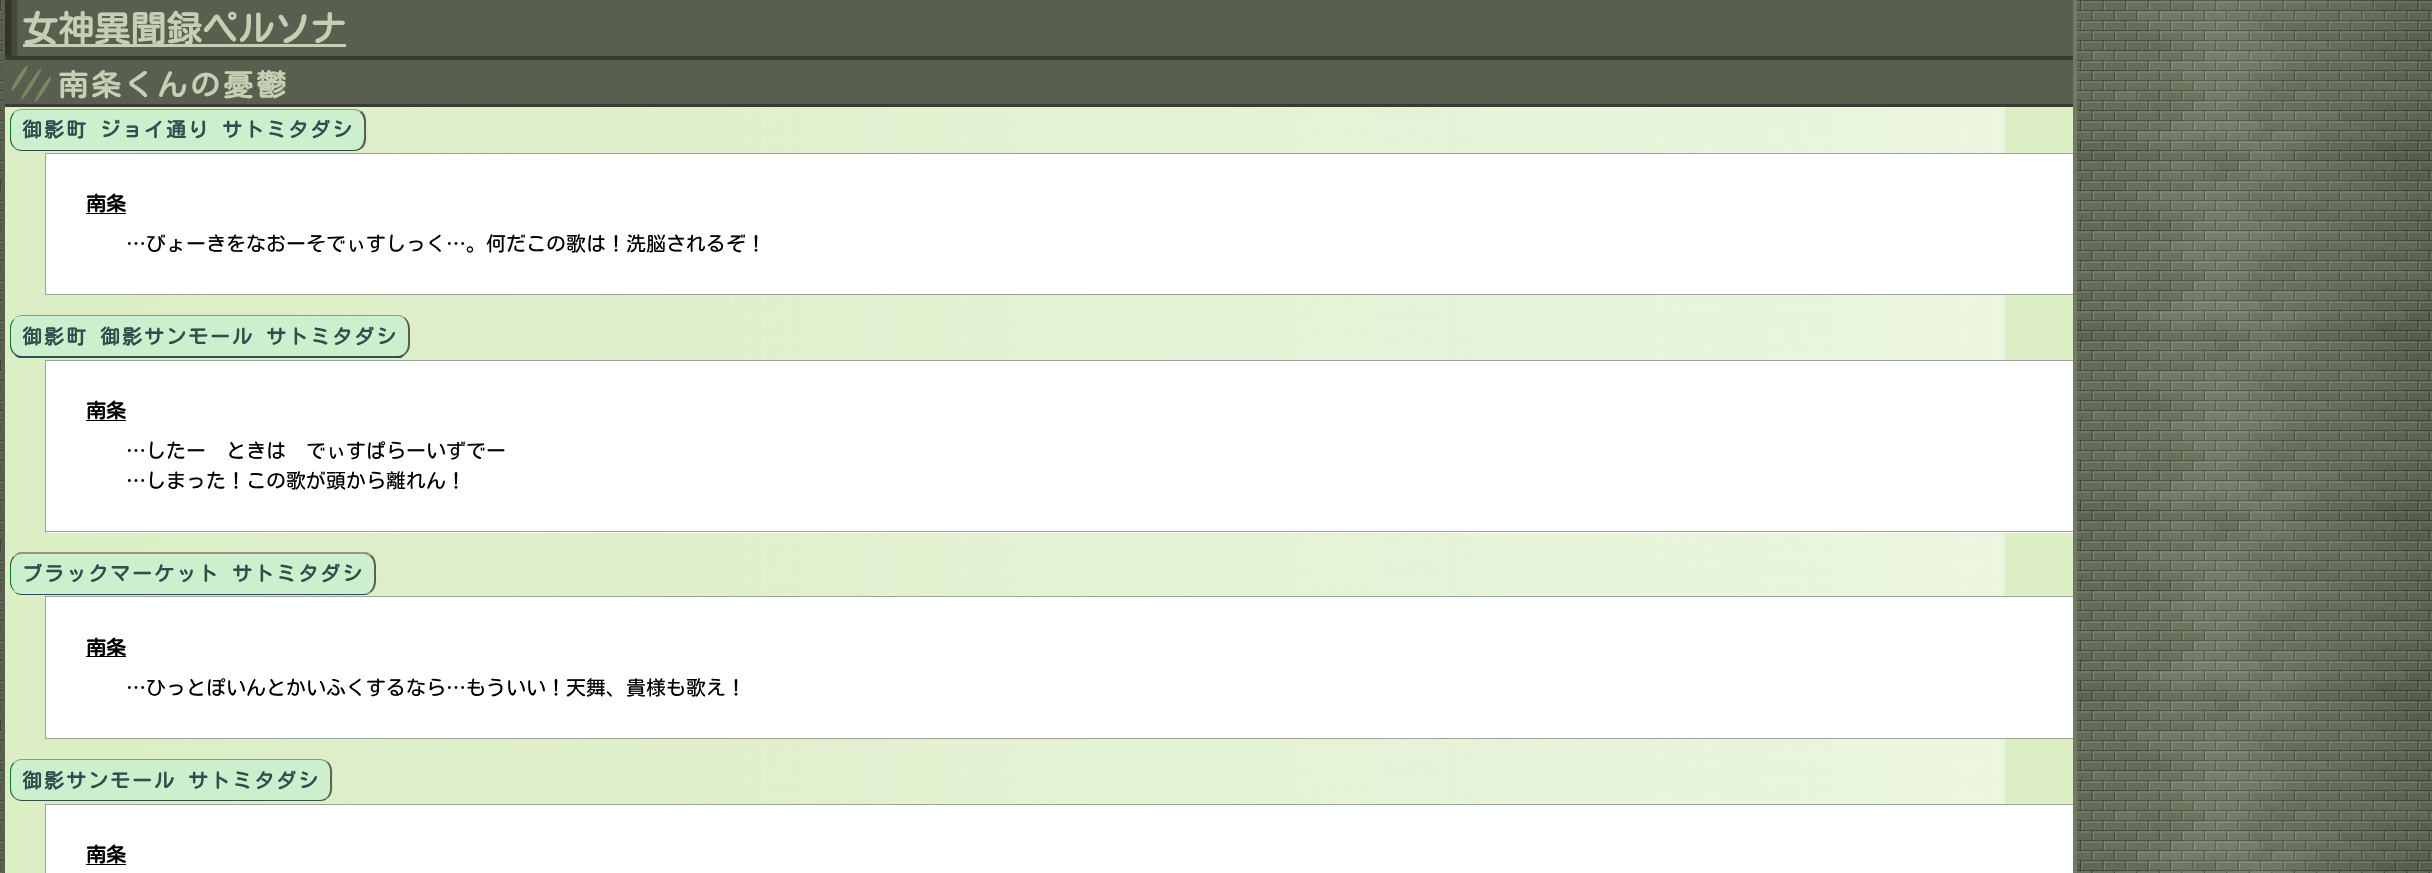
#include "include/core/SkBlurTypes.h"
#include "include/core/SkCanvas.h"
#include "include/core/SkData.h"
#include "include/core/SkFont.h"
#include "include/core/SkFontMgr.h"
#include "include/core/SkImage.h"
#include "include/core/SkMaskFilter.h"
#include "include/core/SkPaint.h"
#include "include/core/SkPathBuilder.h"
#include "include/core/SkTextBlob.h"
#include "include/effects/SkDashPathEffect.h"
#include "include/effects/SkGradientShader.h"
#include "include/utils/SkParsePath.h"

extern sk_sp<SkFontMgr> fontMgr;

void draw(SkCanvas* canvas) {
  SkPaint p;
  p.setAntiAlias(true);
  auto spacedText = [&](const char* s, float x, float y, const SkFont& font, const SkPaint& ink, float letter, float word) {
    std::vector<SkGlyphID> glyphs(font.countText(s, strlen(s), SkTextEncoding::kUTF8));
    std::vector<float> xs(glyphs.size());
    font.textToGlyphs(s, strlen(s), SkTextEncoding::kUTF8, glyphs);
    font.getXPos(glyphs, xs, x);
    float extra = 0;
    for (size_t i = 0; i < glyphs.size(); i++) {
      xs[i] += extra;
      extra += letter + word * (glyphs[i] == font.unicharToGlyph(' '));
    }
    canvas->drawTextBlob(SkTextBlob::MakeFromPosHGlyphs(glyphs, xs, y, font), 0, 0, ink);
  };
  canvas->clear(SK_ColorWHITE);
  canvas->drawImageRect(SkImages::DeferredFromEncodedData(SkData::MakeFromFileName("images/1.png")), SkRect::MakeLTRB(0, 0, 2432, 873), SkSamplingOptions());
  canvas->drawImageRect(SkImages::DeferredFromEncodedData(SkData::MakeFromFileName("images/2.png")), SkRect::MakeLTRB(5, 107, 2073, 873), SkSamplingOptions());
  p.setColor(SkColorSetRGB(114, 122, 102));
  canvas->drawRect(SkRect::MakeLTRB(2073, 0, 2077, 873), p);
  p.setColor(SkColorSetRGB(88, 95, 79));
  canvas->drawPath(SkPathBuilder().moveTo(2, 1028).lineTo(2, 0).lineTo(5, 0).lineTo(5, 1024).close().detach(), p);
  canvas->drawRect(SkRect::MakeLTRB(17, 0, 2073, 56), p);
  canvas->drawImageRect(SkImages::DeferredFromEncodedData(SkData::MakeFromFileName("images/3.png")), SkRect::MakeLTRB(5, 0, 18, 56), SkSamplingOptions());
  p.setColor(SkColorSetRGB(56, 60, 51));
  canvas->drawRect(SkRect::MakeLTRB(5, 56, 2073, 60), p);
  p.setColor(SkColorSetRGB(196, 207, 180));
  canvas->drawRect(SkRect::MakeLTRB(23, 44, 346, 47), p);
  p.setColor(SkColorSetRGB(88, 95, 79));
  canvas->drawRect(SkRect::MakeLTRB(5, 60, 2073, 104), p);
  canvas->drawImageRect(SkImages::DeferredFromEncodedData(SkData::MakeFromFileName("images/4.png")), SkRect::MakeLTRB(11, 65, 51, 102), SkSamplingOptions());
  p.setColor(SkColorSetRGB(56, 60, 51));
  canvas->drawRect(SkRect::MakeLTRB(5, 104, 2073, 107), p);
  p.setColor(SkColorSetRGB(206, 239, 206));
  canvas->drawPath(SkPathBuilder().moveTo(22, 110).lineTo(354, 110).cubicTo(359, 110, 364, 115, 364, 121).lineTo(364, 139).cubicTo(364, 145, 359, 150, 354, 150).lineTo(22, 150).cubicTo(16, 150, 11, 145, 11, 139).lineTo(11, 121).cubicTo(11, 115, 16, 110, 22, 110).close().detach(), p);
  p.setColor(SkColorSetRGB(141, 155, 133));
  canvas->drawPath(SkPathBuilder().moveTo(22, 109).cubicTo(19, 109, 16, 110, 14, 112).lineTo(14, 113).cubicTo(16, 111, 19, 110, 22, 110).lineTo(354, 110).cubicTo(356, 110, 358, 111, 360, 112).lineTo(361, 111).cubicTo(359, 110, 357, 109, 354, 109).close().detach(), p);
  p.setColor(SkColorSetRGB(88, 95, 79));
  canvas->drawPath(SkPathBuilder().moveTo(361.5f, 111).cubicTo(367.5f, 115.5f, 366, 123.5f, 366, 130).cubicTo(366, 136.5f, 367.5f, 144.5f, 361.5f, 149).lineTo(359.5f, 148).cubicTo(365, 143.5f, 364, 136.5f, 364, 130).cubicTo(364, 123.5f, 365, 116.5f, 359.5f, 112).close().detach(), p);
  p.setColor(SkColorSetRGB(47, 79, 79));
  canvas->drawPath(SkPathBuilder().moveTo(361, 149).cubicTo(359, 150, 357, 151, 354, 151).lineTo(22, 151).cubicTo(19, 151, 16, 150, 14, 148).lineTo(14, 147).cubicTo(16, 149, 19, 150, 22, 150).lineTo(354, 150).cubicTo(356, 150, 358, 149, 360, 148).close().detach(), p);
  p.setColor(SkColorSetRGB(0, 102, 34));
  canvas->drawPath(SkPathBuilder().moveTo(10, 121).lineTo(10, 139).cubicTo(10, 142.5f, 11.5f, 145.5f, 13.5f, 147.5f).lineTo(14.5f, 147).cubicTo(10, 142.5f, 11, 136, 11, 130).cubicTo(11, 124, 10, 117.5f, 14.5f, 113).lineTo(13.5f, 112.5f).cubicTo(11.5f, 114.5f, 10, 117.5f, 10, 121).close().detach(), p);
  p.setColor(SkColorSetRGB(254, 255, 255));
  canvas->drawRect(SkRect::MakeLTRB(46, 154, 2073, 294), p);
  p.setColor(SkColorSetRGB(160, 160, 160));
  canvas->drawRect(SkRect::MakeLTRB(45, 153, 2073, 154), p);
  canvas->drawRect(SkRect::MakeLTRB(45, 294, 2073, 295), p);
  canvas->drawRect(SkRect::MakeLTRB(45, 153, 46, 295), p);
  p.setColor(SK_ColorBLACK);
  canvas->drawRect(SkRect::MakeLTRB(86, 213, 126, 214), p);
  p.setColor(SkColorSetRGB(206, 239, 206));
  canvas->drawPath(SkPathBuilder().moveTo(22, 316).lineTo(398, 316).cubicTo(403, 316, 408, 321, 408, 328).lineTo(408, 345).cubicTo(408, 351, 403, 356, 398, 356).lineTo(22, 356).cubicTo(16, 356, 11, 351, 11, 345).lineTo(11, 328).cubicTo(11, 321, 16, 316, 22, 316).close().detach(), p);
  p.setColor(SkColorSetRGB(141, 155, 133));
  canvas->drawPath(SkPathBuilder().moveTo(22, 315).cubicTo(19, 315, 16, 316, 14, 319).cubicTo(16, 317, 19, 316, 22, 316).lineTo(398, 316).cubicTo(400, 316, 402, 317, 404, 318).lineTo(405, 318).cubicTo(403, 316, 400, 315, 398, 315).close().detach(), p);
  p.setColor(SkColorSetRGB(88, 95, 79));
  canvas->drawPath(SkPathBuilder().moveTo(410, 345).lineTo(410, 328).cubicTo(410, 324, 408, 320, 405, 317.5f).lineTo(403.5f, 318).cubicTo(409, 322.5f, 408, 330, 408, 336.5f).cubicTo(408, 343, 409, 350, 403.5f, 354).lineTo(405, 355).cubicTo(408, 352.5f, 410, 349, 410, 345).close().detach(), p);
  p.setColor(SkColorSetRGB(47, 79, 79));
  canvas->drawPath(SkPathBuilder().moveTo(19, 358).cubicTo(17, 357, 15, 356, 14, 354).lineTo(15, 353).cubicTo(16, 355, 19, 356, 22, 356).lineTo(398, 356).cubicTo(400, 356, 402, 355, 403, 354).lineTo(405, 355).lineTo(401, 358).close().detach(), p);
  p.setColor(SkColorSetRGB(0, 102, 34));
  canvas->drawPath(SkPathBuilder().moveTo(10, 328).lineTo(10, 345).cubicTo(10, 348.5f, 11.5f, 351.5f, 13.5f, 354).lineTo(14.5f, 353).cubicTo(10, 348.5f, 11, 342, 11, 336.5f).cubicTo(11, 330.5f, 10, 324, 14.5f, 319.5f).lineTo(14, 319).cubicTo(11.5f, 321, 10, 324.5f, 10, 328).close().detach(), p);
  p.setColor(SkColorSetRGB(254, 255, 255));
  canvas->drawRect(SkRect::MakeLTRB(46, 361, 2073, 533), p);
  p.setColor(SkColorSetRGB(160, 160, 160));
  canvas->drawRect(SkRect::MakeLTRB(45, 360, 2073, 361), p);
  canvas->drawRect(SkRect::MakeLTRB(45, 531, 2073, 532), p);
  canvas->drawRect(SkRect::MakeLTRB(45, 360, 46, 533), p);
  p.setColor(SK_ColorBLACK);
  canvas->drawRect(SkRect::MakeLTRB(86, 420, 126, 421), p);
  p.setColor(SkColorSetRGB(206, 239, 206));
  canvas->drawPath(SkPathBuilder().moveTo(22, 554).lineTo(364, 554).cubicTo(369, 554, 374, 559, 374, 565).lineTo(374, 582).cubicTo(374, 589, 369, 594, 364, 594).lineTo(22, 594).cubicTo(16, 594, 11, 589, 11, 582).lineTo(11, 565).cubicTo(11, 559, 16, 554, 22, 554).close().detach(), p);
  p.setColor(SkColorSetRGB(141, 155, 133));
  canvas->drawPath(SkPathBuilder().moveTo(22, 554).cubicTo(19, 554, 16, 555, 15, 557).lineTo(14, 556).cubicTo(15, 555, 17, 553, 19, 552).lineTo(367, 552).lineTo(372, 555).lineTo(369, 556).cubicTo(368, 555, 366, 554, 364, 554).close().detach(), p);
  p.setColor(SkColorSetRGB(88, 95, 79));
  canvas->drawPath(SkPathBuilder().moveTo(371.5f, 555).cubicTo(377, 559.5f, 376, 567, 376, 573.5f).cubicTo(376, 580, 377, 588, 371, 592.5f).lineTo(369.5f, 591.5f).cubicTo(375, 587, 374, 580, 374, 573.5f).cubicTo(374, 567, 375, 560, 369.5f, 556).close().detach(), p);
  p.setColor(SkColorSetRGB(47, 79, 79));
  canvas->drawPath(SkPathBuilder().moveTo(22, 595).lineTo(364, 595).cubicTo(367, 595, 369, 594, 371, 592).lineTo(370, 592).cubicTo(368, 593, 366, 594, 364, 594).lineTo(22, 594).cubicTo(19, 594, 16, 593, 14, 591).cubicTo(16, 594, 19, 595, 22, 595).close().detach(), p);
  p.setColor(SkColorSetRGB(0, 102, 34));
  canvas->drawPath(SkPathBuilder().moveTo(10, 565).lineTo(10, 582).cubicTo(10, 585.5f, 11.5f, 589, 14, 591).lineTo(14.5f, 590.5f).cubicTo(10, 586, 11, 579.5f, 11, 573.5f).cubicTo(11, 568, 10, 561.5f, 14.5f, 557).lineTo(13.5f, 556).cubicTo(11.5f, 558.5f, 10, 561.5f, 10, 565).close().detach(), p);
  p.setColor(SkColorSetRGB(254, 255, 255));
  canvas->drawRect(SkRect::MakeLTRB(46, 597, 2073, 738), p);
  p.setColor(SkColorSetRGB(160, 160, 160));
  canvas->drawRect(SkRect::MakeLTRB(45, 596, 2073, 597), p);
  canvas->drawRect(SkRect::MakeLTRB(45, 738, 2073, 739), p);
  canvas->drawRect(SkRect::MakeLTRB(45, 596, 46, 739), p);
  p.setColor(SK_ColorBLACK);
  canvas->drawRect(SkRect::MakeLTRB(86, 656, 126, 657), p);
  p.setColor(SkColorSetRGB(206, 239, 206));
  canvas->drawPath(SkPathBuilder().moveTo(22, 760).lineTo(320, 760).cubicTo(326, 760, 330, 765, 330, 771).lineTo(330, 789).cubicTo(330, 795, 326, 800, 320, 800).lineTo(22, 800).cubicTo(16, 800, 11, 795, 11, 789).lineTo(11, 771).cubicTo(11, 765, 16, 760, 22, 760).close().detach(), p);
  p.setColor(SkColorSetRGB(141, 155, 133));
  canvas->drawPath(SkPathBuilder().moveTo(22, 759).cubicTo(19, 759, 16, 760, 14, 762).lineTo(14, 763).cubicTo(16, 761, 19, 760, 22, 760).lineTo(320, 760).cubicTo(322, 760, 324, 761, 326, 762).lineTo(327, 761).cubicTo(325, 760, 323, 759, 320, 759).close().detach(), p);
  p.setColor(SkColorSetRGB(88, 95, 79));
  canvas->drawPath(SkPathBuilder().moveTo(327.5f, 761.5f).cubicTo(333.5f, 765.5f, 332, 773.5f, 332, 780).cubicTo(332, 786.5f, 333.5f, 794.5f, 327.5f, 798.5f).lineTo(326, 798).cubicTo(331.5f, 793.5f, 330, 786, 330, 780).cubicTo(330, 774, 331.5f, 766.5f, 326, 762).close().detach(), p);
  p.setColor(SkColorSetRGB(47, 79, 79));
  canvas->drawPath(SkPathBuilder().moveTo(327, 799).cubicTo(325, 800, 323, 801, 320, 801).lineTo(22, 801).cubicTo(19, 801, 16, 800, 14, 798).lineTo(14, 797).cubicTo(16, 799, 19, 800, 22, 800).lineTo(320, 800).cubicTo(322, 800, 324, 799, 326, 798).close().detach(), p);
  p.setColor(SkColorSetRGB(0, 102, 34));
  canvas->drawPath(SkPathBuilder().moveTo(10, 771).lineTo(10, 789).cubicTo(10, 792.5f, 11.5f, 795.5f, 13.5f, 797.5f).lineTo(14.5f, 797).cubicTo(10, 792.5f, 11, 786, 11, 780).cubicTo(11, 774, 10, 767.5f, 14.5f, 763).lineTo(13.5f, 762.5f).cubicTo(11.5f, 764.5f, 10, 767.5f, 10, 771).close().detach(), p);
  p.setColor(SkColorSetRGB(254, 255, 255));
  canvas->drawRect(SkRect::MakeLTRB(46, 805, 2073, 873), p);
  p.setColor(SkColorSetRGB(160, 160, 160));
  canvas->drawRect(SkRect::MakeLTRB(45, 804, 2073, 805), p);
  canvas->drawRect(SkRect::MakeLTRB(45, 804, 46, 873), p);
  p.setColor(SK_ColorBLACK);
  canvas->drawRect(SkRect::MakeLTRB(86, 864, 126, 865), p);
  SkFont font1(fontMgr->matchFamilyStyle("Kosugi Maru", SkFontStyle::Bold()), 36);
  font1.setSubpixel(true);
  p.setColor(SkColorSetRGB(196, 207, 180));
  canvas->drawString("女神異聞録ペルソナ", 22, 42, font1, p);
  SkFont font2(fontMgr->matchFamilyStyle("Kosugi Maru", SkFontStyle::Bold()), 30);
  font2.setSubpixel(true);
  spacedText("南条くんの憂鬱", 58, 96, font2, p, 3, 0);
  SkFont font3(fontMgr->matchFamilyStyle("Kosugi Maru", SkFontStyle::Bold()), 20);
  font3.setSubpixel(true);
  p.setColor(SkColorSetRGB(47, 79, 79));
  spacedText("御影町 ジョイ通り サトミタダシ", 22, 137, font3, p, 2, 0);
  p.setColor(SK_ColorBLACK);
  canvas->drawString("南条", 86, 211, font3, p);
  SkFont font4(fontMgr->matchFamilyStyle("Kosugi Maru", SkFontStyle::Normal()), 20);
  font4.setSubpixel(true);
  canvas->drawString("…びょーきをなおーそでぃすしっく…。何だこの歌は！洗脳されるぞ！", 126, 251, font4, p);
  p.setColor(SkColorSetRGB(47, 79, 79));
  spacedText("御影町 御影サンモール サトミタダシ", 22, 344, font3, p, 2, 0);
  p.setColor(SK_ColorBLACK);
  canvas->drawString("南条", 86, 418, font3, p);
  canvas->drawString("…したー　ときは　でぃすぱらーいずでー", 126, 458, font4, p);
  canvas->drawString("…しまった！この歌が頭から離れん！", 126, 488, font4, p);
  p.setColor(SkColorSetRGB(47, 79, 79));
  spacedText("ブラックマーケット サトミタダシ", 22, 581, font3, p, 2, 0);
  p.setColor(SK_ColorBLACK);
  canvas->drawString("南条", 86, 655, font3, p);
  canvas->drawString("…ひっとぽいんとかいふくするなら…もういい！天舞、貴様も歌え！", 126, 695, font4, p);
  p.setColor(SkColorSetRGB(47, 79, 79));
  spacedText("御影サンモール サトミタダシ", 22, 788, font3, p, 2, 0);
  p.setColor(SK_ColorBLACK);
  canvas->drawString("南条", 86, 862, font3, p);
}
